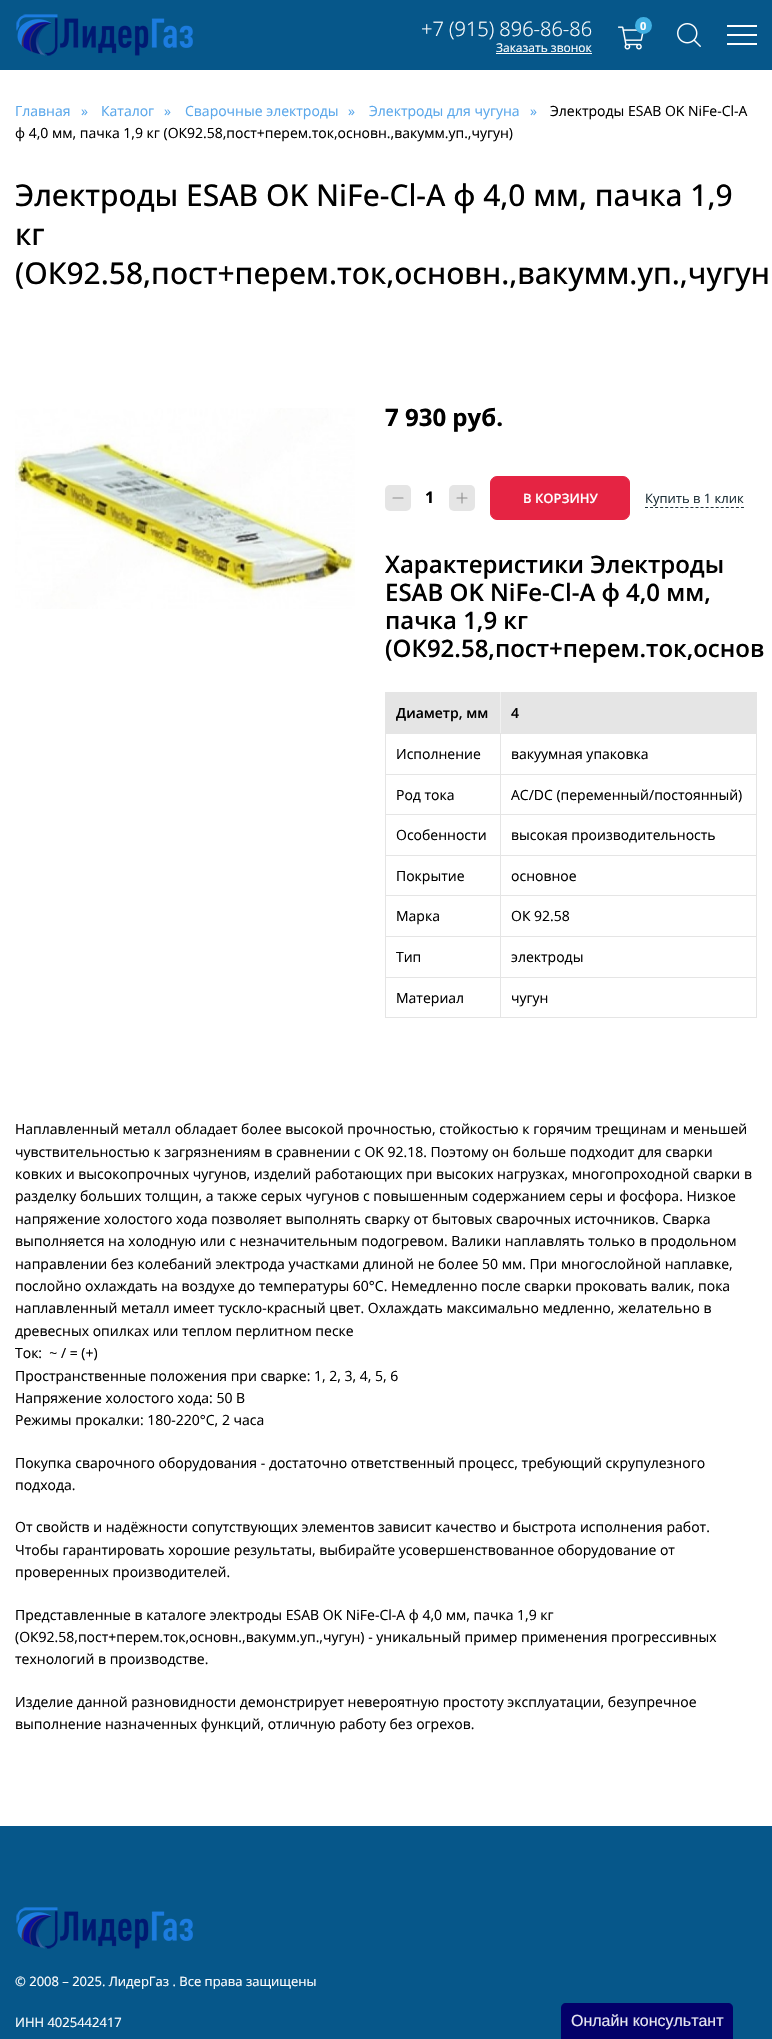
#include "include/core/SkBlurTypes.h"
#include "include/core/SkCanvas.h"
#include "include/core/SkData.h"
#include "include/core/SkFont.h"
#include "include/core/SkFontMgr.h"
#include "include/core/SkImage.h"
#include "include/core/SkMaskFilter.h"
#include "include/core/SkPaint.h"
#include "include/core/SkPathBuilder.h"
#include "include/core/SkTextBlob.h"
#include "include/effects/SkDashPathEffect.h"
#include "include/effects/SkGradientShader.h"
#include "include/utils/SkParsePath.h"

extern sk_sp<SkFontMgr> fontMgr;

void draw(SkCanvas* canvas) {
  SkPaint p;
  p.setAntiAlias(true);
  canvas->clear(SK_ColorWHITE);
  p.setColor(SkColorSetRGB(6, 87, 138));
  canvas->drawRect(SkRect::MakeLTRB(0, 0, 772, 70), p);
  canvas->drawImageRect(SkImages::DeferredFromEncodedData(SkData::MakeFromFileName("images/1.png")), SkRect::MakeLTRB(16, 14, 193, 56), SkSamplingOptions());
  p.setColor(SK_ColorWHITE);
  canvas->drawRect(SkRect::MakeLTRB(496, 53, 592, 54), p);
  canvas->drawImageRect(SkImages::DeferredFromEncodedData(SkData::MakeFromFileName("images/2.png")), SkRect::MakeLTRB(618, 26, 644, 50), SkSamplingOptions());
  p.setColor(SkColorSetRGB(64, 176, 227));
  canvas->drawCircle(643.5f, 25.5f, 8.5f, p);
  canvas->drawImageRect(SkImages::DeferredFromEncodedData(SkData::MakeFromFileName("images/3.png")), SkRect::MakeLTRB(677, 23, 701, 47), SkSamplingOptions());
  p.setColor(SK_ColorWHITE);
  canvas->drawRect(SkRect::MakeLTRB(727, 25, 757, 27), p);
  canvas->drawRect(SkRect::MakeLTRB(727, 34, 757, 36), p);
  canvas->drawRect(SkRect::MakeLTRB(727, 43, 757, 45), p);
  canvas->drawImageRect(SkImages::DeferredFromEncodedData(SkData::MakeFromFileName("images/4.png")), SkRect::MakeLTRB(15, 408, 355, 609), SkSamplingOptions());
  p.setColor(SkColorSetRGB(229, 229, 229));
  canvas->drawRoundRect(SkRect::MakeLTRB(385, 485, 411, 511), 5, 5, p);
  p.setStyle(SkPaint::kStroke_Style);
  p.setStrokeWidth(1.1f);
  p.setStrokeCap(SkPaint::kRound_Cap);
  p.setStrokeJoin(SkPaint::kRound_Join);
  p.setColor(SkColorSetRGB(142, 142, 142));
  canvas->drawPath(SkPathBuilder().moveTo(393, 498).lineTo(403, 498).detach(), p);
  p.setStyle(SkPaint::kFill_Style);
  p.setColor(SkColorSetRGB(229, 229, 229));
  canvas->drawRoundRect(SkRect::MakeLTRB(449, 485, 475, 511), 5, 5, p);
  p.setStyle(SkPaint::kStroke_Style);
  p.setColor(SkColorSetRGB(142, 142, 142));
  canvas->drawPath(SkPathBuilder().moveTo(462, 493).lineTo(462, 503).moveTo(457, 498).lineTo(467, 498).detach(), p);
  p.setStyle(SkPaint::kFill_Style);
  p.setColor(SkColorSetRGB(229, 36, 67));
  canvas->drawRoundRect(SkRect::MakeLTRB(490.5f, 476.5f, 629.5f, 519.5f), 6.5f, 6.5f, p);
  p.setStyle(SkPaint::kStroke_Style);
  p.setStrokeWidth(1);
  p.setStrokeCap(SkPaint::kButt_Cap);
  p.setStrokeJoin(SkPaint::kMiter_Join);
  canvas->drawRoundRect(SkRect::MakeLTRB(490.5f, 476.5f, 629.5f, 519.5f), 6.5f, 6.5f, p);
  p.setColor(SkColorSetRGB(28, 46, 54));
  p.setPathEffect(SkDashPathEffect::Make({{3, 2.05f}}, 0));
  canvas->drawPath(SkPathBuilder().moveTo(645, 507.5f).lineTo(744, 507.5f).detach(), p);
  p.setPathEffect(nullptr);
  p.setStyle(SkPaint::kFill_Style);
  p.setColor(SkColorSetRGB(229, 229, 229));
  canvas->drawRect(SkRect::MakeLTRB(386, 693, 500, 733), p);
  canvas->drawRect(SkRect::MakeLTRB(385, 692, 757, 693), p);
  canvas->drawRect(SkRect::MakeLTRB(500, 774, 757, 775), p);
  canvas->drawRect(SkRect::MakeLTRB(500, 814, 757, 815), p);
  canvas->drawRect(SkRect::MakeLTRB(500, 855, 757, 856), p);
  canvas->drawRect(SkRect::MakeLTRB(500, 895, 757, 896), p);
  canvas->drawRect(SkRect::MakeLTRB(500, 936, 757, 937), p);
  canvas->drawRect(SkRect::MakeLTRB(500, 977, 757, 978), p);
  canvas->drawRect(SkRect::MakeLTRB(756, 977, 757, 1018), p);
  canvas->drawRect(SkRect::MakeLTRB(500, 1017, 757, 1018), p);
  canvas->drawRect(SkRect::MakeLTRB(500, 977, 501, 1018), p);
  canvas->drawRect(SkRect::MakeLTRB(385, 977, 501, 978), p);
  canvas->drawRect(SkRect::MakeLTRB(500, 936, 501, 978), p);
  canvas->drawRect(SkRect::MakeLTRB(385, 936, 501, 937), p);
  canvas->drawRect(SkRect::MakeLTRB(500, 895, 501, 937), p);
  canvas->drawRect(SkRect::MakeLTRB(385, 895, 501, 896), p);
  canvas->drawRect(SkRect::MakeLTRB(500, 855, 501, 896), p);
  canvas->drawRect(SkRect::MakeLTRB(385, 855, 501, 856), p);
  canvas->drawRect(SkRect::MakeLTRB(500, 814, 501, 856), p);
  canvas->drawRect(SkRect::MakeLTRB(385, 814, 501, 815), p);
  canvas->drawRect(SkRect::MakeLTRB(500, 774, 501, 815), p);
  canvas->drawRect(SkRect::MakeLTRB(385, 774, 501, 775), p);
  canvas->drawRect(SkRect::MakeLTRB(500, 733, 501, 775), p);
  p.setColor(SkColorSetRGB(241, 241, 241));
  canvas->drawRect(SkRect::MakeLTRB(500, 692, 501, 734), p);
  p.setColor(SkColorSetRGB(229, 229, 229));
  canvas->drawRect(SkRect::MakeLTRB(385, 1017, 501, 1018), p);
  canvas->drawRect(SkRect::MakeLTRB(385, 977, 386, 1018), p);
  canvas->drawRect(SkRect::MakeLTRB(385, 936, 386, 978), p);
  canvas->drawRect(SkRect::MakeLTRB(385, 895, 386, 937), p);
  canvas->drawRect(SkRect::MakeLTRB(385, 855, 386, 896), p);
  canvas->drawRect(SkRect::MakeLTRB(385, 814, 386, 856), p);
  canvas->drawRect(SkRect::MakeLTRB(385, 733, 386, 815), p);
  canvas->drawRect(SkRect::MakeLTRB(385, 733, 501, 734), p);
  canvas->drawRect(SkRect::MakeLTRB(385, 692, 386, 734), p);
  canvas->drawRect(SkRect::MakeLTRB(501, 693, 757, 734), p);
  canvas->drawRect(SkRect::MakeLTRB(756, 936, 757, 978), p);
  canvas->drawRect(SkRect::MakeLTRB(756, 895, 757, 937), p);
  canvas->drawRect(SkRect::MakeLTRB(756, 855, 757, 896), p);
  canvas->drawRect(SkRect::MakeLTRB(756, 814, 757, 856), p);
  canvas->drawRect(SkRect::MakeLTRB(756, 733, 757, 815), p);
  p.setColor(SkColorSetRGB(6, 87, 138));
  canvas->drawRect(SkRect::MakeLTRB(0, 1826, 772, 2039), p);
  canvas->drawImageRect(SkImages::DeferredFromEncodedData(SkData::MakeFromFileName("images/1.png")), SkRect::MakeLTRB(16, 1907, 193, 1949), SkSamplingOptions());
  p.setColor(SkColorSetRGB(3, 0, 105));
  canvas->drawPath(SkPathBuilder().moveTo(566, 2003).lineTo(728, 2003).cubicTo(731, 2003, 733, 2005, 733, 2008).lineTo(733, 2039).lineTo(561, 2039).lineTo(561, 2008).cubicTo(561, 2005, 563, 2003, 566, 2003).close().detach(), p);
  SkFont font1(fontMgr->matchFamilyStyle("Open Sans", SkFontStyle(300, SkFontStyle::kNormal_Width, SkFontStyle::kUpright_Slant)), 20);
  font1.setSubpixel(true);
  p.setColor(SK_ColorWHITE);
  canvas->drawString("+7 (915) 896-86-86", 421, 36, font1, p);
  SkFont font2(fontMgr->matchFamilyStyle("Open Sans", SkFontStyle::Normal()), 12);
  font2.setSubpixel(true);
  canvas->drawString("Заказать звонок", 496, 52, font2, p);
  SkFont font3(fontMgr->matchFamilyStyle("Open Sans", SkFontStyle::Bold()), 11);
  font3.setSubpixel(true);
  canvas->drawString("0", 640, 30, font3, p);
  SkFont font4(fontMgr->matchFamilyStyle("Open Sans", SkFontStyle::Normal()), 14);
  font4.setSubpixel(true);
  p.setColor(SkColorSetRGB(91, 168, 235));
  canvas->drawString("Главная", 15, 116, font4, p);
  canvas->drawString("»", 81, 116, font4, p);
  canvas->drawString("Каталог", 101, 116, font4, p);
  canvas->drawString("»", 164, 116, font4, p);
  canvas->drawString("Сварочные электроды", 185, 116, font4, p);
  canvas->drawString("»", 348, 116, font4, p);
  canvas->drawString("Электроды для чугуна", 369, 116, font4, p);
  canvas->drawString("»", 530, 116, font4, p);
  p.setColor(SK_ColorBLACK);
  canvas->drawString("Электроды ESAB OK NiFe-Cl-A", 550, 116, font4, p);
  canvas->drawString("ф 4,0 мм, пачка 1,9 кг (ОК92.58,пост+перем.ток,основн.,вакумм.уп.,чугун)", 15, 138, font4, p);
  SkFont font5(fontMgr->matchFamilyStyle("Open Sans", SkFontStyle(500, SkFontStyle::kNormal_Width, SkFontStyle::kUpright_Slant)), 30);
  font5.setSubpixel(true);
  canvas->drawString("Электроды ESAB OK NiFe-Cl-A ф 4,0 мм, пачка 1,9", 15, 206, font5, p);
  canvas->drawString("кг", 15, 245, font5, p);
  canvas->drawString("(ОК92.58,пост+перем.ток,основн.,вакумм.уп.,чугун", 15, 284, font5, p);
  SkFont font6(fontMgr->matchFamilyStyle("Open Sans", SkFontStyle::Bold()), 24);
  font6.setSubpixel(true);
  canvas->drawString("7 930 руб.", 385, 426, font6, p);
  SkFont font7(fontMgr->matchFamilyStyle("Open Sans", SkFontStyle::Bold()), 16);
  font7.setSubpixel(true);
  canvas->drawString("1", 425, 503, font7, p);
  SkFont font8(fontMgr->matchFamilyStyle("Open Sans", SkFontStyle(600, SkFontStyle::kNormal_Width, SkFontStyle::kUpright_Slant)), 13);
  font8.setSubpixel(true);
  p.setColor(SK_ColorWHITE);
  canvas->drawString("В КОРЗИНУ", 523, 503, font8, p);
  SkFont font9(fontMgr->matchFamilyStyle("Open Sans", SkFontStyle::Normal()), 13);
  font9.setSubpixel(true);
  p.setColor(SkColorSetRGB(28, 46, 54));
  canvas->drawString("Купить в 1 клик", 645, 503, font9, p);
  SkFont font10(fontMgr->matchFamilyStyle("Open Sans", SkFontStyle(600, SkFontStyle::kNormal_Width, SkFontStyle::kUpright_Slant)), 24);
  font10.setSubpixel(true);
  p.setColor(SK_ColorBLACK);
  canvas->drawString("Характеристики Электроды", 385, 573, font10, p);
  canvas->drawString("ESAB OK NiFe-Cl-A ф 4,0 мм,", 385, 601, font10, p);
  canvas->drawString("пачка 1,9 кг", 385, 629, font10, p);
  canvas->drawString("(ОК92.58,пост+перем.ток,основ", 385, 657, font10, p);
  SkFont font11(fontMgr->matchFamilyStyle("Open Sans", SkFontStyle(600, SkFontStyle::kNormal_Width, SkFontStyle::kUpright_Slant)), 14);
  font11.setSubpixel(true);
  canvas->drawString("Диаметр, мм", 396, 718, font11, p);
  canvas->drawString("4", 511, 718, font11, p);
  canvas->drawString("Исполнение", 396, 759, font4, p);
  canvas->drawString("вакуумная упаковка", 511, 759, font4, p);
  canvas->drawString("Род тока", 396, 800, font4, p);
  canvas->drawString("AC/DC (переменный/постоянный)", 511, 800, font4, p);
  canvas->drawString("Особенности", 396, 840, font4, p);
  canvas->drawString("высокая производительность", 511, 840, font4, p);
  canvas->drawString("Покрытие", 396, 881, font4, p);
  canvas->drawString("основное", 511, 881, font4, p);
  canvas->drawString("Марка", 396, 921, font4, p);
  canvas->drawString("ОК 92.58", 511, 921, font4, p);
  canvas->drawString("Тип", 396, 962, font4, p);
  canvas->drawString("электроды", 511, 962, font4, p);
  canvas->drawString("Материал", 396, 1003, font4, p);
  canvas->drawString("чугун", 511, 1003, font4, p);
  canvas->drawString("Наплавленный металл обладает более высокой прочностью, стойкостью к горячим трещинам и меньшей", 15, 1134, font4, p);
  canvas->drawString("чувствительностью к загрязнениям в сравнении с OK 92.18. Поэтому он больше подходит для сварки", 15, 1157, font4, p);
  canvas->drawString("ковких и высокопрочных чугунов, изделий работающих при высоких нагрузках, многопроходной сварки в", 15, 1179, font4, p);
  canvas->drawString("разделку больших толщин, а также серых чугунов с повышенным содержанием серы и фосфора. Низкое", 15, 1201, font4, p);
  canvas->drawString("напряжение холостого хода позволяет выполнять сварку от бытовых сварочных источников. Сварка", 15, 1224, font4, p);
  canvas->drawString("выполняется на холодную или с незначительным подогревом. Валики наплавлять только в продольном", 15, 1246, font4, p);
  canvas->drawString("направлении без колебаний электрода участками длиной не более 50 мм. При многослойной наплавке,", 15, 1269, font4, p);
  canvas->drawString("послойно охлаждать на воздухе до температуры 60°С. Немедленно после сварки проковать валик, пока", 15, 1291, font4, p);
  canvas->drawString("наплавленный металл имеет тускло-красный цвет. Охлаждать максимально медленно, желательно в", 15, 1313, font4, p);
  canvas->drawString("древесных опилках или теплом перлитном песке", 15, 1336, font4, p);
  canvas->drawString("Ток:  ~ / = (+)", 15, 1358, font4, p);
  canvas->drawString("Пространственные положения при сварке: 1, 2, 3, 4, 5, 6", 15, 1381, font4, p);
  canvas->drawString("Напряжение холостого хода: 50 В", 15, 1403, font4, p);
  canvas->drawString("Режимы прокалки: 180-220°С, 2 часа", 15, 1425, font4, p);
  canvas->drawString("Покупка сварочного оборудования - достаточно ответственный процесс, требующий скрупулезного", 15, 1468, font4, p);
  canvas->drawString("подхода.", 15, 1490, font4, p);
  canvas->drawString("От свойств и надёжности сопутствующих элементов зависит качество и быстрота исполнения работ.", 15, 1532, font4, p);
  canvas->drawString("Чтобы гарантировать хорошие результаты, выбирайте усовершенствованное оборудование от", 15, 1555, font4, p);
  canvas->drawString("проверенных производителей.", 15, 1577, font4, p);
  canvas->drawString("Представленные в каталоге электроды ESAB OK NiFe-Cl-A ф 4,0 мм, пачка 1,9 кг", 15, 1620, font4, p);
  canvas->drawString("(ОК92.58,пост+перем.ток,основн.,вакумм.уп.,чугун) - уникальный пример применения прогрессивных", 15, 1642, font4, p);
  canvas->drawString("технологий в производстве.", 15, 1664, font4, p);
  canvas->drawString("Изделие данной разновидности демонстрирует невероятную простоту эксплуатации, безупречное", 15, 1707, font4, p);
  canvas->drawString("выполнение назначенных функций, отличную работу без огрехов.", 15, 1729, font4, p);
  p.setColor(SK_ColorWHITE);
  canvas->drawString("© 2008 – 2025. ЛидерГаз . Все права защищены", 15, 1986, font9, p);
  canvas->drawString("ИНН 4025442417", 15, 2027, font9, p);
  SkFont font12(fontMgr->matchFamilyStyle("Liberation Sans", SkFontStyle::Normal()), 16);
  font12.setSubpixel(true);
  p.setColor(SkColorSetRGB(230, 230, 240));
  canvas->drawString("Онлайн консультант", 571, 2026, font12, p);
}
